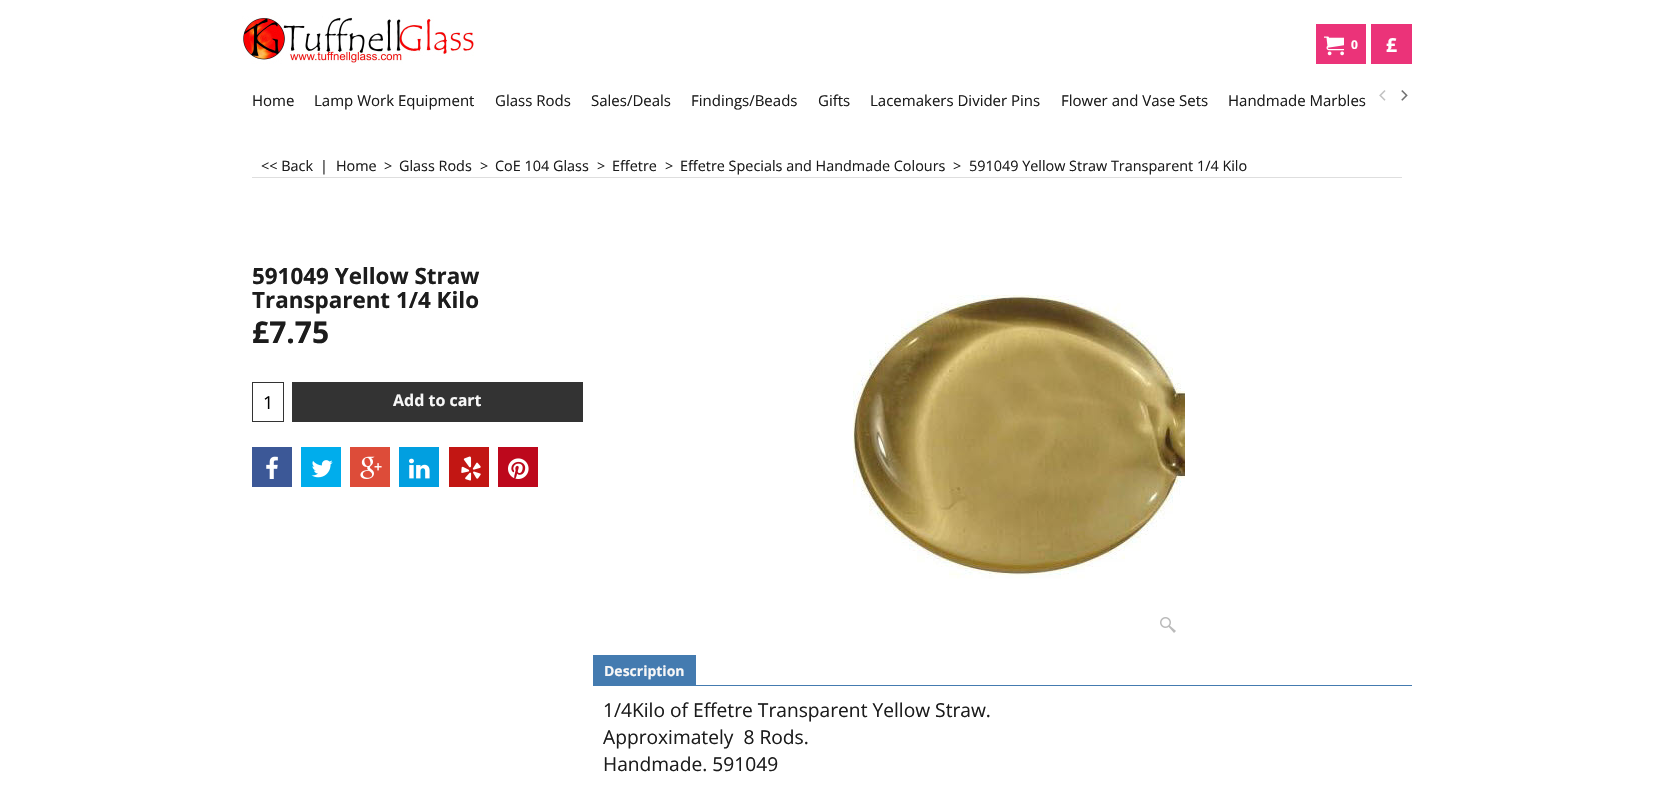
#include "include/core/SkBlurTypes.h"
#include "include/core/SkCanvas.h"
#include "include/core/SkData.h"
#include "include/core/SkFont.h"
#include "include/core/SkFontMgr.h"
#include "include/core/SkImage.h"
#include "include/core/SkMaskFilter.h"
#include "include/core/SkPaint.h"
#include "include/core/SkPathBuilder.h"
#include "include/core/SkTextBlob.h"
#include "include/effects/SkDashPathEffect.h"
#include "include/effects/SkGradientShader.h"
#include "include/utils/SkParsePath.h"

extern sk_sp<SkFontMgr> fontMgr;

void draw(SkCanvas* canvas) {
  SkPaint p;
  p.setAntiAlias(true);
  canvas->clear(SK_ColorWHITE);
  canvas->drawImageRect(SkImages::DeferredFromEncodedData(SkData::MakeFromFileName("images/1.png")), SkRect::MakeLTRB(242, 16, 474, 64), SkSamplingOptions());
  p.setColor(SkColorSetRGB(235, 51, 121));
  canvas->drawRect(SkRect::MakeLTRB(1316, 24, 1366, 64), p);
  canvas->drawImageRect(SkImages::DeferredFromEncodedData(SkData::MakeFromFileName("images/2.png")), SkRect::MakeLTRB(1324, 36, 1344, 56), SkSamplingOptions());
  canvas->drawRect(SkRect::MakeLTRB(1371, 24, 1412, 64), p);
  canvas->drawImageRect(SkImages::DeferredFromEncodedData(SkData::MakeFromFileName("images/3.png")), SkRect::MakeLTRB(1379, 90, 1386, 101), SkSamplingOptions());
  canvas->drawImageRect(SkImages::DeferredFromEncodedData(SkData::MakeFromFileName("images/4.png")), SkRect::MakeLTRB(1401, 90, 1408, 101), SkSamplingOptions());
  p.setColor(SkColorSetRGB(222, 222, 222));
  canvas->drawRect(SkRect::MakeLTRB(252, 177, 1402, 178), p);
  p.setColor(SkColorSetRGB(51, 51, 51));
  canvas->drawRect(SkRect::MakeLTRB(252, 382, 284, 422), p);
  p.setColor(SK_ColorWHITE);
  canvas->drawRect(SkRect::MakeLTRB(253, 383, 283, 421), p);
  p.setColor(SkColorSetRGB(51, 51, 51));
  canvas->drawRect(SkRect::MakeLTRB(292, 382, 583, 422), p);
  p.setColor(SkColorSetRGB(60, 88, 151));
  canvas->drawRect(SkRect::MakeLTRB(252, 447, 292, 487), p);
  canvas->drawImageRect(SkImages::DeferredFromEncodedData(SkData::MakeFromFileName("images/5.png")), SkRect::MakeLTRB(266, 456, 278, 479), SkSamplingOptions());
  p.setColor(SkColorSetRGB(0, 173, 236));
  canvas->drawRect(SkRect::MakeLTRB(301, 447, 341, 487), p);
  canvas->drawImageRect(SkImages::DeferredFromEncodedData(SkData::MakeFromFileName("images/6.png")), SkRect::MakeLTRB(311, 460, 333, 478), SkSamplingOptions());
  p.setColor(SkColorSetRGB(221, 76, 57));
  canvas->drawRect(SkRect::MakeLTRB(350, 447, 390, 487), p);
  canvas->drawImageRect(SkImages::DeferredFromEncodedData(SkData::MakeFromFileName("images/7.png")), SkRect::MakeLTRB(360, 456, 382, 479), SkSamplingOptions());
  p.setColor(SkColorSetRGB(1, 159, 224));
  canvas->drawRect(SkRect::MakeLTRB(399, 447, 439, 487), p);
  canvas->drawImageRect(SkImages::DeferredFromEncodedData(SkData::MakeFromFileName("images/8.png")), SkRect::MakeLTRB(409, 458, 430, 479), SkSamplingOptions());
  p.setColor(SkColorSetRGB(194, 22, 19));
  canvas->drawRect(SkRect::MakeLTRB(449, 447, 489, 487), p);
  canvas->drawImageRect(SkImages::DeferredFromEncodedData(SkData::MakeFromFileName("images/9.png")), SkRect::MakeLTRB(461, 456, 481, 481), SkSamplingOptions());
  p.setColor(SkColorSetRGB(189, 8, 28));
  canvas->drawRect(SkRect::MakeLTRB(498, 447, 538, 487), p);
  canvas->drawImageRect(SkImages::DeferredFromEncodedData(SkData::MakeFromFileName("images/10.png")), SkRect::MakeLTRB(508, 458, 529, 479), SkSamplingOptions());
  canvas->drawImageRect(SkImages::DeferredFromEncodedData(SkData::MakeFromFileName("images/11.png")), SkRect::MakeLTRB(853, 295, 1185, 579), SkSamplingOptions());
  canvas->drawImageRect(SkImages::DeferredFromEncodedData(SkData::MakeFromFileName("images/12.png")), SkRect::MakeLTRB(1160, 617, 1176, 633), SkSamplingOptions());
  p.setColor(SkColorSetRGB(68, 123, 176));
  canvas->drawRect(SkRect::MakeLTRB(593, 655, 696, 686), p);
  canvas->drawRect(SkRect::MakeLTRB(696, 685, 1412, 686), p);
  SkFont font1(fontMgr->matchFamilyStyle("Open Sans", SkFontStyle::Bold()), 12);
  font1.setSubpixel(true);
  p.setColor(SK_ColorWHITE);
  canvas->drawString("0", 1351, 49, font1, p);
  SkFont font2(fontMgr->matchFamilyStyle("Open Sans", SkFontStyle::Bold()), 19.2f);
  font2.setSubpixel(true);
  canvas->drawString("£", 1386, 52, font2, p);
  SkFont font3(fontMgr->matchFamilyStyle("Open Sans", SkFontStyle::Normal()), 15);
  font3.setSubpixel(true);
  p.setColor(SkColorSetRGB(28, 28, 28));
  canvas->drawString("Home", 252, 106, font3, p);
  canvas->drawString("Lamp Work Equipment", 314, 106, font3, p);
  canvas->drawString("Glass Rods", 495, 106, font3, p);
  canvas->drawString("Sales/Deals", 591, 106, font3, p);
  canvas->drawString("Findings/Beads", 691, 106, font3, p);
  canvas->drawString("Gifts", 818, 106, font3, p);
  canvas->drawString("Lacemakers Divider Pins", 870, 106, font3, p);
  canvas->drawString("Flower and Vase Sets", 1061, 106, font3, p);
  canvas->drawString("Handmade Marbles", 1228, 106, font3, p);
  SkFont font4(fontMgr->matchFamilyStyle("Open Sans", SkFontStyle::Normal()), 14.4f);
  font4.setSubpixel(true);
  canvas->drawString("<< Back", 261, 171, font4, p);
  canvas->drawString("|", 320, 171, font4, p);
  canvas->drawString("Home", 336, 171, font4, p);
  canvas->drawString(">", 384, 171, font4, p);
  canvas->drawString("Glass Rods", 399, 171, font4, p);
  canvas->drawString(">", 480, 171, font4, p);
  canvas->drawString("CoE 104 Glass", 495, 171, font4, p);
  canvas->drawString(">", 597, 171, font4, p);
  canvas->drawString("Effetre", 612, 171, font4, p);
  canvas->drawString(">", 665, 171, font4, p);
  canvas->drawString("Effetre Specials and Handmade Colours", 680, 171, font4, p);
  canvas->drawString(">", 953, 171, font4, p);
  canvas->drawString("591049 Yellow Straw Transparent 1/4 Kilo", 969, 171, font4, p);
  SkFont font5(fontMgr->matchFamilyStyle("Open Sans", SkFontStyle::Bold()), 22.4f);
  font5.setSubpixel(true);
  canvas->drawString("591049 Yellow Straw", 252, 284, font5, p);
  canvas->drawString("Transparent 1/4 Kilo", 252, 308, font5, p);
  SkFont font6(fontMgr->matchFamilyStyle("Open Sans", SkFontStyle::Bold()), 30);
  font6.setSubpixel(true);
  canvas->drawString("£7.75", 252, 343, font6, p);
  SkFont font7(fontMgr->matchFamilyStyle("Open Sans", SkFontStyle::Normal()), 18);
  font7.setSubpixel(true);
  p.setColor(SK_ColorBLACK);
  canvas->drawString("1", 263, 409, font7, p);
  SkFont font8(fontMgr->matchFamilyStyle("Open Sans", SkFontStyle::Bold()), 16);
  font8.setSubpixel(true);
  p.setColor(SkColorSetRGB(247, 247, 247));
  canvas->drawString("Add to cart", 393, 406, font8, p);
  SkFont font9(fontMgr->matchFamilyStyle("Open Sans", SkFontStyle::Bold()), 14);
  font9.setSubpixel(true);
  canvas->drawString("Description", 604, 676, font9, p);
  SkFont font10(fontMgr->matchFamilyStyle("Open Sans", SkFontStyle::Normal()), 19.2f);
  font10.setSubpixel(true);
  p.setColor(SkColorSetRGB(28, 28, 28));
  canvas->drawString("1/4Kilo of Effetre Transparent Yellow Straw.", 603, 717, font10, p);
  canvas->drawString("Approximately  8 Rods.", 603, 744, font10, p);
  canvas->drawString("Handmade. 591049", 603, 771, font10, p);
}
